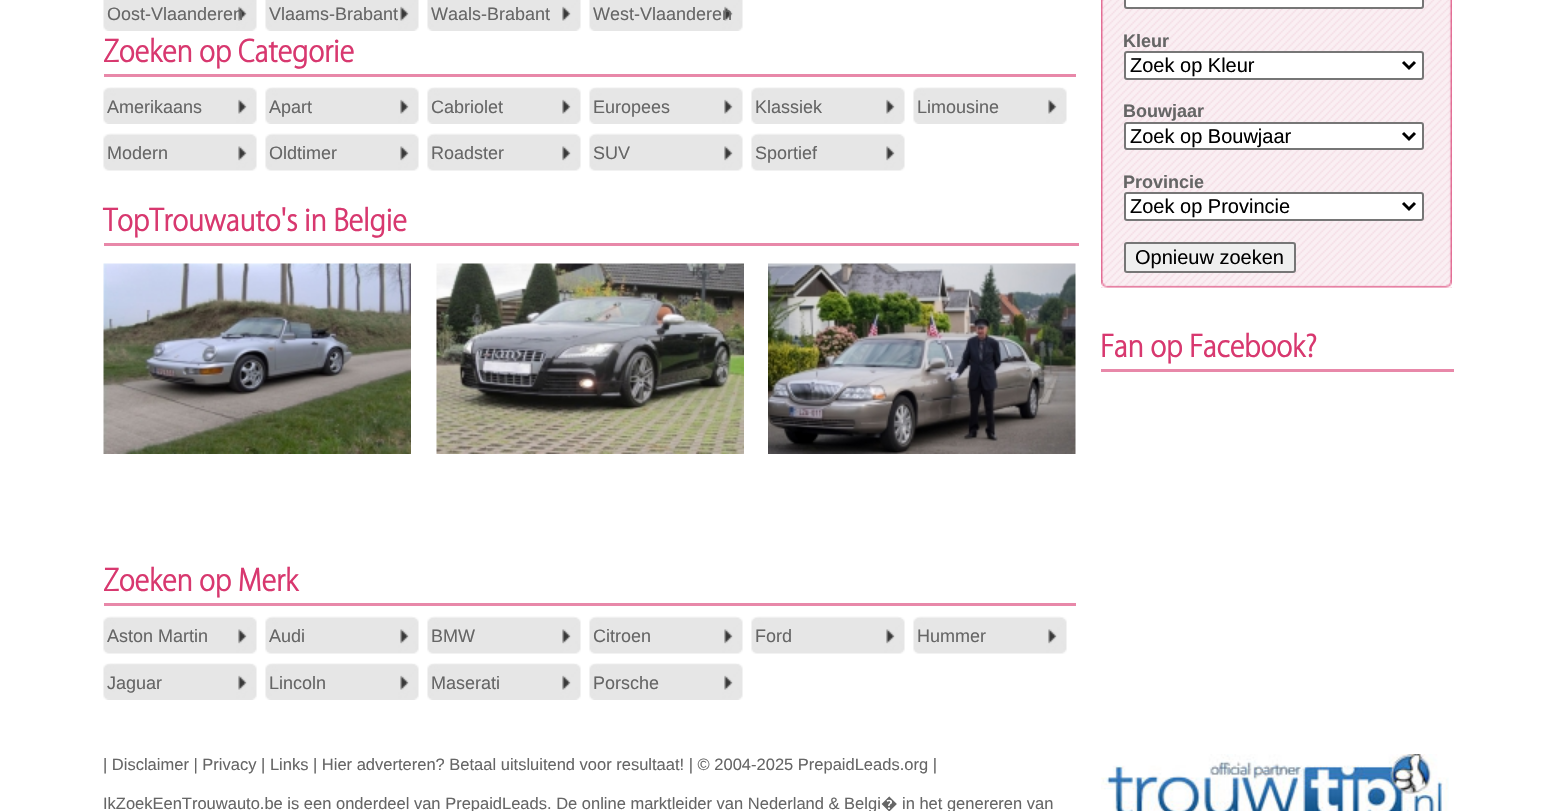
#include "include/core/SkBlurTypes.h"
#include "include/core/SkCanvas.h"
#include "include/core/SkData.h"
#include "include/core/SkFont.h"
#include "include/core/SkFontMgr.h"
#include "include/core/SkImage.h"
#include "include/core/SkMaskFilter.h"
#include "include/core/SkPaint.h"
#include "include/core/SkPathBuilder.h"
#include "include/core/SkTextBlob.h"
#include "include/effects/SkDashPathEffect.h"
#include "include/effects/SkGradientShader.h"
#include "include/utils/SkParsePath.h"

extern sk_sp<SkFontMgr> fontMgr;

void draw(SkCanvas* canvas) {
  SkPaint p;
  p.setAntiAlias(true);
  canvas->clear(SK_ColorWHITE);
  canvas->drawImageRect(SkImages::DeferredFromEncodedData(SkData::MakeFromFileName("images/1.png")), SkRect::MakeLTRB(103, 0, 257, 31), SkSamplingOptions());
  canvas->drawImageRect(SkImages::DeferredFromEncodedData(SkData::MakeFromFileName("images/1.png")), SkRect::MakeLTRB(265, 0, 419, 31), SkSamplingOptions());
  canvas->drawImageRect(SkImages::DeferredFromEncodedData(SkData::MakeFromFileName("images/1.png")), SkRect::MakeLTRB(427, 0, 581, 31), SkSamplingOptions());
  canvas->drawImageRect(SkImages::DeferredFromEncodedData(SkData::MakeFromFileName("images/1.png")), SkRect::MakeLTRB(589, 0, 743, 31), SkSamplingOptions());
  p.setColor(SkColorSetRGB(232, 136, 169));
  canvas->drawRect(SkRect::MakeLTRB(104, 74, 1076, 77), p);
  canvas->drawImageRect(SkImages::DeferredFromEncodedData(SkData::MakeFromFileName("images/2.png")), SkRect::MakeLTRB(103, 87, 257, 124), SkSamplingOptions());
  canvas->drawImageRect(SkImages::DeferredFromEncodedData(SkData::MakeFromFileName("images/2.png")), SkRect::MakeLTRB(265, 87, 419, 124), SkSamplingOptions());
  canvas->drawImageRect(SkImages::DeferredFromEncodedData(SkData::MakeFromFileName("images/2.png")), SkRect::MakeLTRB(427, 87, 581, 124), SkSamplingOptions());
  canvas->drawImageRect(SkImages::DeferredFromEncodedData(SkData::MakeFromFileName("images/2.png")), SkRect::MakeLTRB(589, 87, 743, 124), SkSamplingOptions());
  canvas->drawImageRect(SkImages::DeferredFromEncodedData(SkData::MakeFromFileName("images/2.png")), SkRect::MakeLTRB(751, 87, 905, 124), SkSamplingOptions());
  canvas->drawImageRect(SkImages::DeferredFromEncodedData(SkData::MakeFromFileName("images/2.png")), SkRect::MakeLTRB(913, 87, 1067, 124), SkSamplingOptions());
  canvas->drawImageRect(SkImages::DeferredFromEncodedData(SkData::MakeFromFileName("images/3.png")), SkRect::MakeLTRB(103, 133, 257, 171), SkSamplingOptions());
  canvas->drawImageRect(SkImages::DeferredFromEncodedData(SkData::MakeFromFileName("images/3.png")), SkRect::MakeLTRB(265, 133, 419, 171), SkSamplingOptions());
  canvas->drawImageRect(SkImages::DeferredFromEncodedData(SkData::MakeFromFileName("images/3.png")), SkRect::MakeLTRB(427, 133, 581, 171), SkSamplingOptions());
  canvas->drawImageRect(SkImages::DeferredFromEncodedData(SkData::MakeFromFileName("images/3.png")), SkRect::MakeLTRB(589, 133, 743, 171), SkSamplingOptions());
  canvas->drawImageRect(SkImages::DeferredFromEncodedData(SkData::MakeFromFileName("images/3.png")), SkRect::MakeLTRB(751, 133, 905, 171), SkSamplingOptions());
  canvas->drawRect(SkRect::MakeLTRB(104, 243, 1079, 246), p);
  canvas->drawImageRect(SkImages::DeferredFromEncodedData(SkData::MakeFromFileName("images/4.png")), SkRect::MakeLTRB(103, 263, 411, 454), SkSamplingOptions());
  canvas->drawImageRect(SkImages::DeferredFromEncodedData(SkData::MakeFromFileName("images/5.png")), SkRect::MakeLTRB(436, 263, 744, 454), SkSamplingOptions());
  canvas->drawImageRect(SkImages::DeferredFromEncodedData(SkData::MakeFromFileName("images/6.png")), SkRect::MakeLTRB(768, 263, 1076, 454), SkSamplingOptions());
  canvas->drawRect(SkRect::MakeLTRB(104, 603, 1076, 606), p);
  canvas->drawImageRect(SkImages::DeferredFromEncodedData(SkData::MakeFromFileName("images/3.png")), SkRect::MakeLTRB(103, 616, 257, 654), SkSamplingOptions());
  canvas->drawImageRect(SkImages::DeferredFromEncodedData(SkData::MakeFromFileName("images/3.png")), SkRect::MakeLTRB(265, 616, 419, 654), SkSamplingOptions());
  canvas->drawImageRect(SkImages::DeferredFromEncodedData(SkData::MakeFromFileName("images/3.png")), SkRect::MakeLTRB(427, 616, 581, 654), SkSamplingOptions());
  canvas->drawImageRect(SkImages::DeferredFromEncodedData(SkData::MakeFromFileName("images/3.png")), SkRect::MakeLTRB(589, 616, 743, 654), SkSamplingOptions());
  canvas->drawImageRect(SkImages::DeferredFromEncodedData(SkData::MakeFromFileName("images/3.png")), SkRect::MakeLTRB(751, 616, 905, 654), SkSamplingOptions());
  canvas->drawImageRect(SkImages::DeferredFromEncodedData(SkData::MakeFromFileName("images/3.png")), SkRect::MakeLTRB(913, 616, 1067, 654), SkSamplingOptions());
  canvas->drawImageRect(SkImages::DeferredFromEncodedData(SkData::MakeFromFileName("images/2.png")), SkRect::MakeLTRB(103, 663, 257, 700), SkSamplingOptions());
  canvas->drawImageRect(SkImages::DeferredFromEncodedData(SkData::MakeFromFileName("images/2.png")), SkRect::MakeLTRB(265, 663, 419, 700), SkSamplingOptions());
  canvas->drawImageRect(SkImages::DeferredFromEncodedData(SkData::MakeFromFileName("images/2.png")), SkRect::MakeLTRB(427, 663, 581, 700), SkSamplingOptions());
  canvas->drawImageRect(SkImages::DeferredFromEncodedData(SkData::MakeFromFileName("images/2.png")), SkRect::MakeLTRB(589, 663, 743, 700), SkSamplingOptions());
  canvas->drawImageRect(SkImages::DeferredFromEncodedData(SkData::MakeFromFileName("images/7.png")), SkRect::MakeLTRB(1101, 0, 1452, 288), SkSamplingOptions());
  p.setColor(SK_ColorWHITE);
  canvas->drawRoundRect(SkRect::MakeLTRB(1125, -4, 1423, 8), 2, 2, p);
  p.setStyle(SkPaint::kStroke_Style);
  p.setStrokeWidth(2);
  p.setColor(SkColorSetRGB(118, 118, 118));
  canvas->drawRoundRect(SkRect::MakeLTRB(1125, -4, 1423, 8), 2, 2, p);
  p.setStyle(SkPaint::kFill_Style);
  p.setColor(SK_ColorWHITE);
  canvas->drawRoundRect(SkRect::MakeLTRB(1125, 52, 1423, 79), 2, 2, p);
  p.setStyle(SkPaint::kStroke_Style);
  p.setColor(SkColorSetRGB(118, 118, 118));
  canvas->drawRoundRect(SkRect::MakeLTRB(1125, 52, 1423, 79), 2, 2, p);
  p.setStrokeWidth(3);
  p.setColor(SK_ColorBLACK);
  canvas->drawPath(SkPathBuilder().moveTo(1403, 62).lineTo(1409, 68).lineTo(1415, 62).detach(), p);
  p.setStyle(SkPaint::kFill_Style);
  p.setColor(SK_ColorWHITE);
  canvas->drawRoundRect(SkRect::MakeLTRB(1125, 123, 1423, 149), 2, 2, p);
  p.setStyle(SkPaint::kStroke_Style);
  p.setStrokeWidth(2);
  p.setColor(SkColorSetRGB(118, 118, 118));
  canvas->drawRoundRect(SkRect::MakeLTRB(1125, 123, 1423, 149), 2, 2, p);
  p.setStrokeWidth(3);
  p.setColor(SK_ColorBLACK);
  canvas->drawPath(SkPathBuilder().moveTo(1403, 133).lineTo(1409, 139).lineTo(1415, 133).detach(), p);
  p.setStyle(SkPaint::kFill_Style);
  p.setColor(SK_ColorWHITE);
  canvas->drawRoundRect(SkRect::MakeLTRB(1125, 193, 1423, 220), 2, 2, p);
  p.setStyle(SkPaint::kStroke_Style);
  p.setStrokeWidth(2);
  p.setColor(SkColorSetRGB(118, 118, 118));
  canvas->drawRoundRect(SkRect::MakeLTRB(1125, 193, 1423, 220), 2, 2, p);
  p.setStrokeWidth(3);
  p.setColor(SK_ColorBLACK);
  canvas->drawPath(SkPathBuilder().moveTo(1403, 203).lineTo(1409, 209).lineTo(1415, 203).detach(), p);
  p.setStyle(SkPaint::kFill_Style);
  p.setColor(SkColorSetRGB(239, 239, 239));
  canvas->drawRoundRect(SkRect::MakeLTRB(1125, 243, 1295, 272), 2, 2, p);
  p.setStyle(SkPaint::kStroke_Style);
  p.setStrokeWidth(2);
  p.setColor(SkColorSetRGB(118, 118, 118));
  canvas->drawRoundRect(SkRect::MakeLTRB(1125, 243, 1295, 272), 2, 2, p);
  canvas->drawImageRect(SkImages::DeferredFromEncodedData(SkData::MakeFromFileName("images/8.png")), SkRect::MakeLTRB(1101, 280, 1452, 288), SkSamplingOptions());
  p.setStyle(SkPaint::kFill_Style);
  p.setColor(SkColorSetRGB(232, 136, 169));
  canvas->drawRect(SkRect::MakeLTRB(1101, 369, 1454, 372), p);
  canvas->drawImageRect(SkImages::DeferredFromEncodedData(SkData::MakeFromFileName("images/9.png")), SkRect::MakeLTRB(1101, 754, 1449, 811), SkSamplingOptions());
  SkFont font1(fontMgr->matchFamilyStyle("Liberation Sans", SkFontStyle::Normal()), 18);
  font1.setSubpixel(true);
  p.setColor(SkColorSetRGB(102, 102, 102));
  canvas->drawString("Oost-Vlaanderen", 107, 20, font1, p);
  canvas->drawString("Vlaams-Brabant", 269, 20, font1, p);
  canvas->drawString("Waals-Brabant", 431, 20, font1, p);
  canvas->drawString("West-Vlaanderen", 593, 20, font1, p);
  SkFont font2(fontMgr->matchFamilyStyle("Myriad", SkFontStyle::Bold()), 33);
  font2.setSubpixel(true);
  p.setColor(SkColorSetRGB(216, 56, 111));
  canvas->drawString("Zoeken op Categorie", 103, 62, font2, p);
  p.setColor(SkColorSetRGB(102, 102, 102));
  canvas->drawString("Amerikaans", 107, 113, font1, p);
  canvas->drawString("Apart", 269, 113, font1, p);
  canvas->drawString("Cabriolet", 431, 113, font1, p);
  canvas->drawString("Europees", 593, 113, font1, p);
  canvas->drawString("Klassiek", 755, 113, font1, p);
  canvas->drawString("Limousine", 917, 113, font1, p);
  canvas->drawString("Modern", 107, 159, font1, p);
  canvas->drawString("Oldtimer", 269, 159, font1, p);
  canvas->drawString("Roadster", 431, 159, font1, p);
  canvas->drawString("SUV", 593, 159, font1, p);
  canvas->drawString("Sportief", 755, 159, font1, p);
  p.setColor(SkColorSetRGB(216, 56, 111));
  canvas->drawString("TopTrouwauto's in Belgie", 103, 231, font2, p);
  canvas->drawString("Zoeken op Merk", 103, 591, font2, p);
  p.setColor(SkColorSetRGB(102, 102, 102));
  canvas->drawString("Aston Martin", 107, 642, font1, p);
  canvas->drawString("Audi", 269, 642, font1, p);
  canvas->drawString("BMW", 431, 642, font1, p);
  canvas->drawString("Citroen", 593, 642, font1, p);
  canvas->drawString("Ford", 755, 642, font1, p);
  canvas->drawString("Hummer", 917, 642, font1, p);
  canvas->drawString("Jaguar", 107, 689, font1, p);
  canvas->drawString("Lincoln", 269, 689, font1, p);
  canvas->drawString("Maserati", 431, 689, font1, p);
  canvas->drawString("Porsche", 593, 689, font1, p);
  SkFont font3(fontMgr->matchFamilyStyle("Liberation Sans", SkFontStyle::Bold()), 18);
  font3.setSubpixel(true);
  canvas->drawString("Kleur", 1123, 47, font3, p);
  SkFont font4(fontMgr->matchFamilyStyle("Liberation Sans", SkFontStyle::Normal()), 20);
  font4.setSubpixel(true);
  p.setColor(SK_ColorBLACK);
  canvas->drawString("Zoek op Kleur", 1130, 72, font4, p);
  p.setColor(SkColorSetRGB(102, 102, 102));
  canvas->drawString("Bouwjaar", 1123, 117, font3, p);
  p.setColor(SK_ColorBLACK);
  canvas->drawString("Zoek op Bouwjaar", 1130, 143, font4, p);
  p.setColor(SkColorSetRGB(102, 102, 102));
  canvas->drawString("Provincie", 1123, 188, font3, p);
  p.setColor(SK_ColorBLACK);
  canvas->drawString("Zoek op Provincie", 1130, 213, font4, p);
  canvas->drawString("Opnieuw zoeken", 1135, 264, font4, p);
  p.setColor(SkColorSetRGB(216, 56, 111));
  canvas->drawString("Fan op Facebook?", 1100, 357, font2, p);
  SkFont font5(fontMgr->matchFamilyStyle("Liberation Sans", SkFontStyle::Normal()), 16.5f);
  font5.setSubpixel(true);
  p.setColor(SkColorSetRGB(102, 102, 102));
  canvas->drawString("| Disclaimer | Privacy | Links | Hier adverteren? Betaal uitsluitend voor resultaat! | © 2004-2025 PrepaidLeads.org |", 103, 770, font5, p);
  canvas->drawString("IkZoekEenTrouwauto.be is een onderdeel van PrepaidLeads. De online marktleider van Nederland & Belgi", 103, 809, font5, p);
  SkFont font6(fontMgr->matchFamilyStyle("Noto Sans", SkFontStyle::Normal()), 16.5f);
  font6.setSubpixel(true);
  canvas->drawString("�", 881, 809, font6, p);
  canvas->drawString("in het genereren van", 902, 809, font5, p);
}
